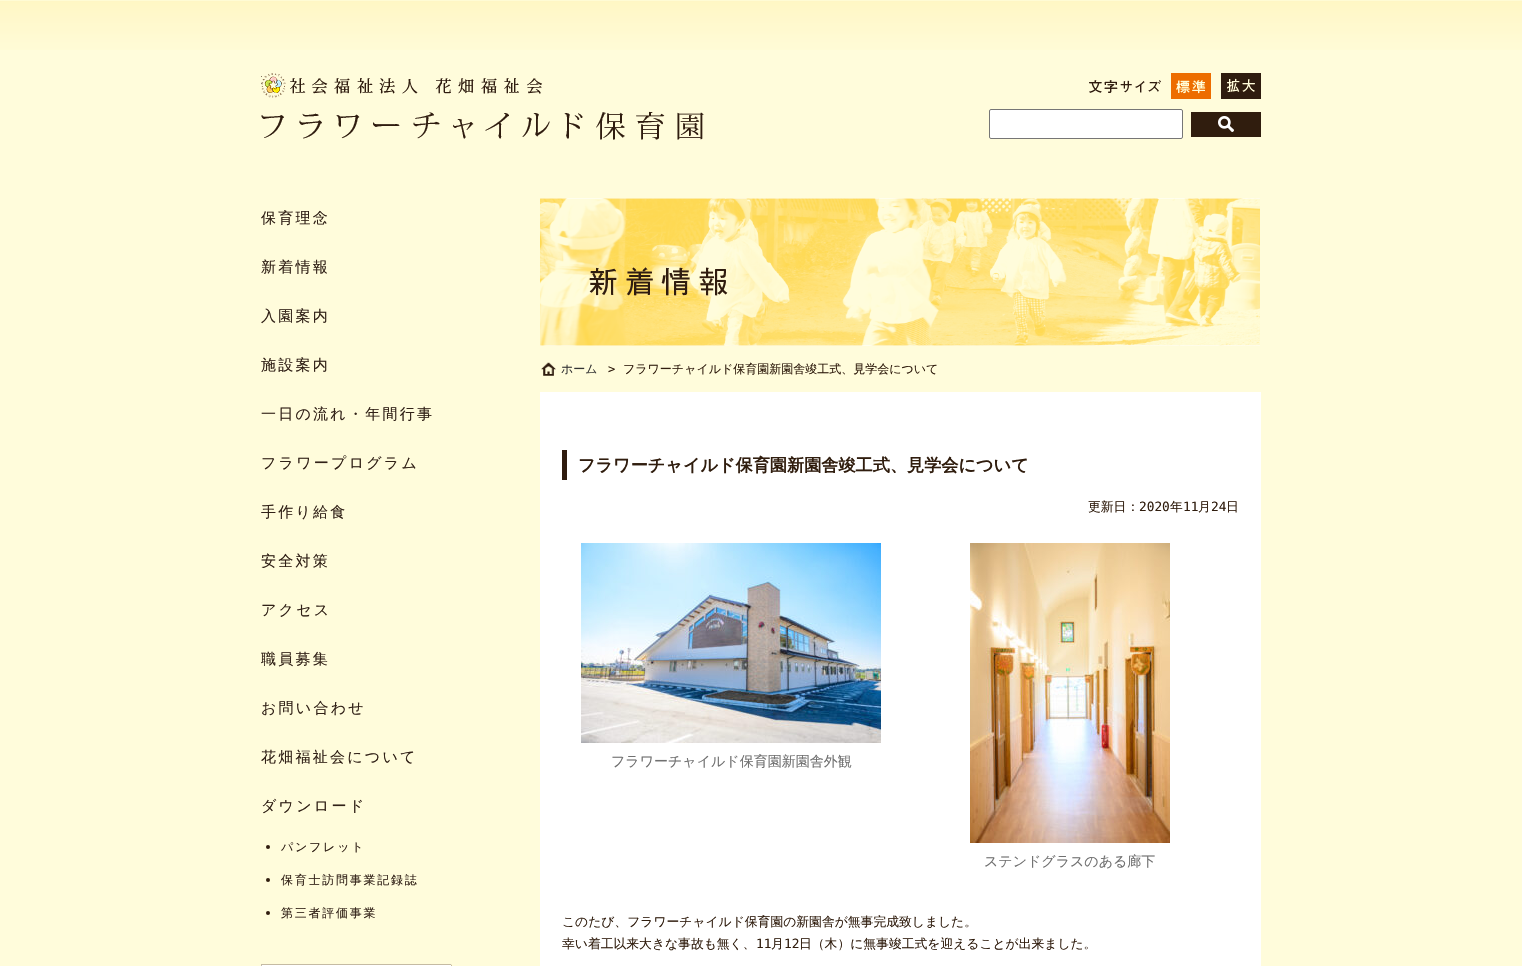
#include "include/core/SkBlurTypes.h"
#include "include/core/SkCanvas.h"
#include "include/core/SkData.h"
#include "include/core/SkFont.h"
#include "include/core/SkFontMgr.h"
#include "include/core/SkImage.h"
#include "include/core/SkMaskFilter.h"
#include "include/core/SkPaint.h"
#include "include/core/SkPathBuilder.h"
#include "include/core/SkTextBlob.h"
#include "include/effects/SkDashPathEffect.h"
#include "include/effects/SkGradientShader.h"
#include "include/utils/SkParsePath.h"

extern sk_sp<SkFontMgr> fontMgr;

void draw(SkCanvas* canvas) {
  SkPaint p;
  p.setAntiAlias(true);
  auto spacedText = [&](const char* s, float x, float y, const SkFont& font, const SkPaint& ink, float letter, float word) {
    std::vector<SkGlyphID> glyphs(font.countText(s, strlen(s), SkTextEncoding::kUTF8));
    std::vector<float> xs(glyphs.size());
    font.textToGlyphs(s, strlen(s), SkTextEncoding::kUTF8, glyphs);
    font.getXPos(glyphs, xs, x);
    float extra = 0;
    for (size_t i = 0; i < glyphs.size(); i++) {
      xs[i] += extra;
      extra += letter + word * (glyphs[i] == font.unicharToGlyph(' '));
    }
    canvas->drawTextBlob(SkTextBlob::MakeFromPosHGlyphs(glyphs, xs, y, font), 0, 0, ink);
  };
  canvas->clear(SkColorSetRGB(255, 252, 219));
  canvas->drawImageRect(SkImages::DeferredFromEncodedData(SkData::MakeFromFileName("images/1.png")), SkRect::MakeLTRB(0, 0, 1522, 50), SkSamplingOptions());
  canvas->drawImageRect(SkImages::DeferredFromEncodedData(SkData::MakeFromFileName("images/2.png")), SkRect::MakeLTRB(261, 73, 704, 140), SkSamplingOptions());
  canvas->drawImageRect(SkImages::DeferredFromEncodedData(SkData::MakeFromFileName("images/3.png")), SkRect::MakeLTRB(1089, 80, 1161, 93), SkSamplingOptions());
  canvas->drawImageRect(SkImages::DeferredFromEncodedData(SkData::MakeFromFileName("images/4.png")), SkRect::MakeLTRB(1171, 73, 1211, 99), SkSamplingOptions());
  canvas->drawImageRect(SkImages::DeferredFromEncodedData(SkData::MakeFromFileName("images/5.png")), SkRect::MakeLTRB(1221, 73, 1261, 99), SkSamplingOptions());
  p.setColor(SK_ColorWHITE);
  canvas->drawRoundRect(SkRect::MakeLTRB(989.5f, 109.5f, 1182.5f, 138.5f), 1.5f, 1.5f, p);
  p.setStyle(SkPaint::kStroke_Style);
  p.setStrokeWidth(1);
  p.setColor(SkColorSetRGB(118, 118, 118));
  canvas->drawRoundRect(SkRect::MakeLTRB(989.5f, 109.5f, 1182.5f, 138.5f), 1.5f, 1.5f, p);
  p.setStyle(SkPaint::kFill_Style);
  p.setColor(SkColorSetRGB(48, 29, 14));
  canvas->drawRect(SkRect::MakeLTRB(1191, 112, 1261, 137), p);
  canvas->drawImageRect(SkImages::DeferredFromEncodedData(SkData::MakeFromFileName("images/6.png")), SkRect::MakeLTRB(1218, 116, 1234, 132), SkSamplingOptions());
  canvas->drawCircle(268, 847, 2, p);
  canvas->drawCircle(268, 880, 2, p);
  canvas->drawCircle(268, 913, 2, p);
  canvas->drawImageRect(SkImages::DeferredFromEncodedData(SkData::MakeFromFileName("images/7.png")), SkRect::MakeLTRB(261, 964, 452, 966), SkSamplingOptions());
  canvas->drawImageRect(SkImages::DeferredFromEncodedData(SkData::MakeFromFileName("images/8.png")), SkRect::MakeLTRB(540, 198, 1260, 346), SkSamplingOptions());
  canvas->drawImageRect(SkImages::DeferredFromEncodedData(SkData::MakeFromFileName("images/9.png")), SkRect::MakeLTRB(541, 362, 556, 376), SkSamplingOptions());
  p.setColor(SK_ColorWHITE);
  canvas->drawRect(SkRect::MakeLTRB(540, 392, 1261, 966), p);
  p.setColor(SkColorSetRGB(47, 28, 15));
  canvas->drawRect(SkRect::MakeLTRB(562, 450, 567, 480), p);
  canvas->drawImageRect(SkImages::DeferredFromEncodedData(SkData::MakeFromFileName("images/10.png")), SkRect::MakeLTRB(581, 543, 881, 743), SkSamplingOptions());
  canvas->drawImageRect(SkImages::DeferredFromEncodedData(SkData::MakeFromFileName("images/11.png")), SkRect::MakeLTRB(970, 543, 1170, 843), SkSamplingOptions());
  SkFont font1(fontMgr->matchFamilyStyle("WenQuanYi Zen Hei", SkFontStyle(500, SkFontStyle::kNormal_Width, SkFontStyle::kUpright_Slant)), 15);
  font1.setSubpixel(true);
  p.setColor(SkColorSetRGB(49, 33, 23));
  spacedText("保育理念", 261, 223, font1, p, 2.25f, 0);
  spacedText("新着情報", 261, 272, font1, p, 2.25f, 0);
  spacedText("入園案内", 261, 321, font1, p, 2.25f, 0);
  spacedText("施設案内", 261, 370, font1, p, 2.25f, 0);
  spacedText("一日の流れ・年間行事", 261, 419, font1, p, 2.25f, 0);
  spacedText("フラワープログラム", 261, 468, font1, p, 2.25f, 0);
  spacedText("手作り給食", 261, 517, font1, p, 2.25f, 0);
  spacedText("安全対策", 261, 566, font1, p, 2.25f, 0);
  spacedText("アクセス", 261, 615, font1, p, 2.25f, 0);
  spacedText("職員募集", 261, 664, font1, p, 2.25f, 0);
  spacedText("お問い合わせ", 261, 713, font1, p, 2.25f, 0);
  spacedText("花畑福祉会について", 261, 762, font1, p, 2.25f, 0);
  spacedText("ダウンロード", 261, 811, font1, p, 2.25f, 0);
  SkFont font2(fontMgr->matchFamilyStyle("WenQuanYi Zen Hei", SkFontStyle(500, SkFontStyle::kNormal_Width, SkFontStyle::kUpright_Slant)), 12);
  font2.setSubpixel(true);
  spacedText("パンフレット", 281, 851, font2, p, 1.75f, 0);
  spacedText("保育士訪問事業記録誌", 281, 884, font2, p, 1.75f, 0);
  spacedText("第三者評価事業", 281, 917, font2, p, 1.75f, 0);
  p.setColor(SkColorSetRGB(51, 51, 51));
  canvas->drawString("ホーム", 561, 373, font2, p);
  SkFont font3(fontMgr->matchFamilyStyle("DejaVu Sans Mono", SkFontStyle::Normal()), 12);
  font3.setSubpixel(true);
  p.setColor(SkColorSetRGB(48, 29, 14));
  canvas->drawString(">", 608, 373, font3, p);
  canvas->drawString("フラワーチャイルド保育園新園舎竣工式、見学会について", 623, 373, font2, p);
  SkFont font4(fontMgr->matchFamilyStyle("WenQuanYi Zen Hei", SkFontStyle::Bold()), 17.15f);
  font4.setSubpixel(true);
  canvas->drawString("フラワーチャイルド保育園新園舎竣工式、見学会について", 578, 471, font4, p);
  SkFont font5(fontMgr->matchFamilyStyle("WenQuanYi Zen Hei", SkFontStyle(500, SkFontStyle::kNormal_Width, SkFontStyle::kUpright_Slant)), 12.8f);
  font5.setSubpixel(true);
  canvas->drawString("更新日：", 1088, 511, font5, p);
  SkFont font6(fontMgr->matchFamilyStyle("DejaVu Sans Mono", SkFontStyle::Normal()), 12.8f);
  font6.setSubpixel(true);
  canvas->drawString("2020", 1139, 511, font6, p);
  canvas->drawString("年", 1170, 511, font5, p);
  canvas->drawString("11", 1183, 511, font6, p);
  canvas->drawString("月", 1198, 511, font5, p);
  canvas->drawString("24", 1211, 511, font6, p);
  canvas->drawString("日", 1226, 511, font5, p);
  SkFont font7(fontMgr->matchFamilyStyle("WenQuanYi Zen Hei", SkFontStyle(500, SkFontStyle::kNormal_Width, SkFontStyle::kUpright_Slant)), 14);
  font7.setSubpixel(true);
  p.setColor(SkColorSetRGB(112, 112, 112));
  canvas->drawString("フラワーチャイルド保育園新園舎外観", 611, 766, font7, p);
  canvas->drawString("ステンドグラスのある廊下", 984, 866, font7, p);
  p.setColor(SkColorSetRGB(48, 29, 14));
  canvas->drawString("このたび、フラワーチャイルド保育園の新園舎が無事完成致しました。", 562, 926, font5, p);
  canvas->drawString("幸い着工以来大きな事故も無く、", 562, 948, font5, p);
  canvas->drawString("11", 756, 948, font6, p);
  canvas->drawString("月", 771, 948, font5, p);
  canvas->drawString("12", 784, 948, font6, p);
  canvas->drawString("日（木）に無事竣工式を迎えることが出来ました。", 799, 948, font5, p);
}
